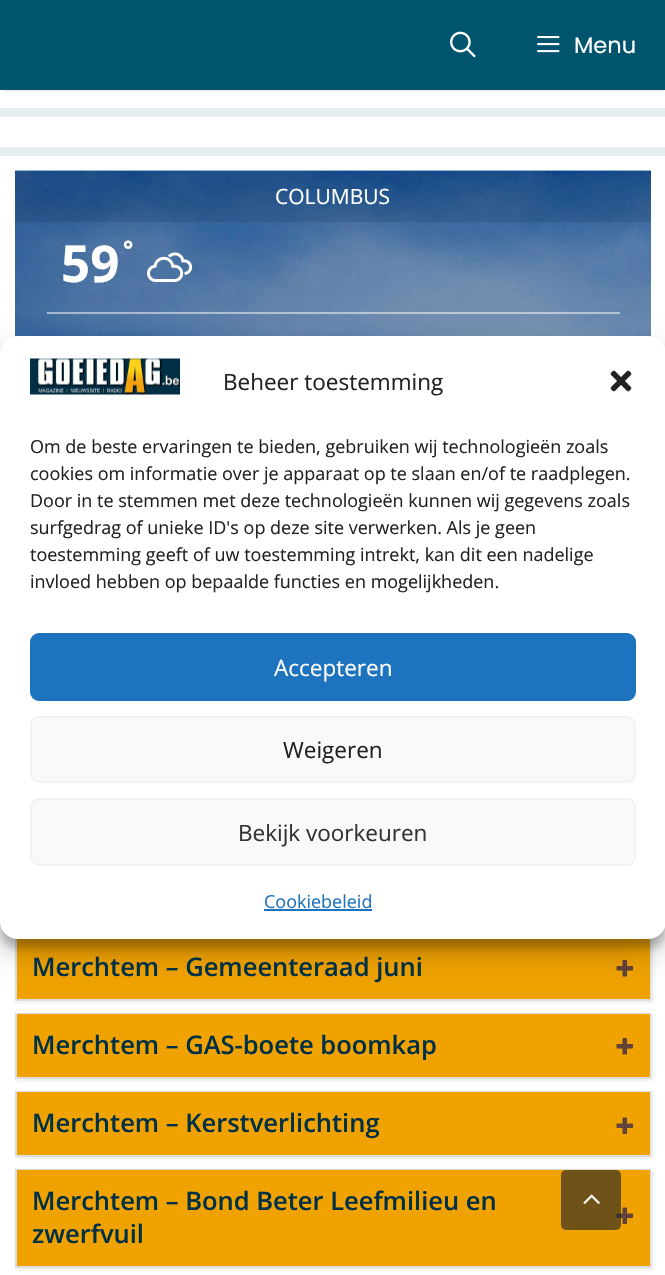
#include "include/core/SkBlurTypes.h"
#include "include/core/SkCanvas.h"
#include "include/core/SkData.h"
#include "include/core/SkFont.h"
#include "include/core/SkFontMgr.h"
#include "include/core/SkImage.h"
#include "include/core/SkMaskFilter.h"
#include "include/core/SkPaint.h"
#include "include/core/SkPathBuilder.h"
#include "include/core/SkTextBlob.h"
#include "include/effects/SkDashPathEffect.h"
#include "include/effects/SkGradientShader.h"
#include "include/utils/SkParsePath.h"

extern sk_sp<SkFontMgr> fontMgr;

void draw(SkCanvas* canvas) {
  SkPaint p;
  p.setAntiAlias(true);
  canvas->clear(SkColorSetRGB(230, 238, 241));
  p.setColor(SK_ColorWHITE);
  canvas->drawRect(SkRect::MakeLTRB(0, 90, 665, 108), p);
  p.setColor(SkColorSetARGB(51, 0, 0, 0));
  p.setMaskFilter(SkMaskFilter::MakeBlur(kNormal_SkBlurStyle, 1.5f));
  canvas->drawRect(SkRect::MakeLTRB(3, 6, 663, 90), p);
  p.setMaskFilter(nullptr);
  p.setColor(SkColorSetRGB(0, 84, 110));
  canvas->drawRect(SkRect::MakeLTRB(0, 0, 665, 90), p);
  canvas->drawImageRect(SkImages::DeferredFromEncodedData(SkData::MakeFromFileName("images/1.png")), SkRect::MakeLTRB(450, 31, 476, 58), SkSamplingOptions());
  canvas->drawImageRect(SkImages::DeferredFromEncodedData(SkData::MakeFromFileName("images/2.png")), SkRect::MakeLTRB(537, 36, 560, 53), SkSamplingOptions());
  p.setColor(SK_ColorWHITE);
  canvas->drawRect(SkRect::MakeLTRB(0, 117, 665, 147), p);
  canvas->drawRect(SkRect::MakeLTRB(0, 156, 665, 354), p);
  canvas->drawImageRect(SkImages::DeferredFromEncodedData(SkData::MakeFromFileName("images/3.png")), SkRect::MakeLTRB(15, 170, 651, 337), SkSamplingOptions());
  p.setColor(SkColorSetARGB(26, 0, 0, 0));
  canvas->drawRect(SkRect::MakeLTRB(15, 171, 651, 222), p);
  canvas->drawImageRect(SkImages::DeferredFromEncodedData(SkData::MakeFromFileName("images/4.png")), SkRect::MakeLTRB(147, 252, 193, 282), SkSamplingOptions());
  p.setColor(SkColorSetARGB(128, 255, 255, 255));
  canvas->drawRect(SkRect::MakeLTRB(47, 312, 620, 314), p);
  p.setColor(SK_ColorWHITE);
  canvas->drawRect(SkRect::MakeLTRB(0, 921, 665, 1275), p);
  p.setColor(SkColorSetARGB(87, 176, 178, 181));
  p.setMaskFilter(SkMaskFilter::MakeBlur(kNormal_SkBlurStyle, 2));
  canvas->drawRect(SkRect::MakeLTRB(17, 935, 653, 1002), p);
  p.setMaskFilter(nullptr);
  p.setStyle(SkPaint::kStroke_Style);
  p.setStrokeWidth(2);
  p.setColor(SkColorSetRGB(221, 221, 221));
  canvas->drawRect(SkRect::MakeLTRB(16, 934, 650, 1000), p);
  p.setStyle(SkPaint::kFill_Style);
  p.setColor(SkColorSetRGB(240, 162, 1));
  canvas->drawRect(SkRect::MakeLTRB(17, 938, 650, 999), p);
  canvas->drawImageRect(SkImages::DeferredFromEncodedData(SkData::MakeFromFileName("images/5.png")), SkRect::MakeLTRB(616, 960, 633, 977), SkSamplingOptions());
  p.setColor(SkColorSetARGB(87, 176, 178, 181));
  p.setMaskFilter(SkMaskFilter::MakeBlur(kNormal_SkBlurStyle, 2));
  canvas->drawRect(SkRect::MakeLTRB(17, 1014, 653, 1080), p);
  p.setMaskFilter(nullptr);
  p.setStyle(SkPaint::kStroke_Style);
  p.setColor(SkColorSetRGB(221, 221, 221));
  canvas->drawRect(SkRect::MakeLTRB(16, 1014, 650, 1078), p);
  p.setStyle(SkPaint::kFill_Style);
  p.setColor(SkColorSetRGB(240, 162, 1));
  canvas->drawRect(SkRect::MakeLTRB(17, 1014, 650, 1077), p);
  canvas->drawImageRect(SkImages::DeferredFromEncodedData(SkData::MakeFromFileName("images/5.png")), SkRect::MakeLTRB(616, 1038, 633, 1055), SkSamplingOptions());
  p.setColor(SkColorSetARGB(87, 176, 178, 181));
  p.setMaskFilter(SkMaskFilter::MakeBlur(kNormal_SkBlurStyle, 2));
  canvas->drawRect(SkRect::MakeLTRB(17, 1092, 653, 1158), p);
  p.setMaskFilter(nullptr);
  p.setStyle(SkPaint::kStroke_Style);
  p.setColor(SkColorSetRGB(221, 221, 221));
  canvas->drawRect(SkRect::MakeLTRB(16, 1092, 650, 1156), p);
  p.setStyle(SkPaint::kFill_Style);
  p.setColor(SkColorSetRGB(240, 162, 1));
  canvas->drawRect(SkRect::MakeLTRB(17, 1092, 650, 1155), p);
  canvas->drawImageRect(SkImages::DeferredFromEncodedData(SkData::MakeFromFileName("images/6.png")), SkRect::MakeLTRB(616, 1117, 633, 1134), SkSamplingOptions());
  p.setColor(SkColorSetARGB(87, 176, 178, 181));
  p.setMaskFilter(SkMaskFilter::MakeBlur(kNormal_SkBlurStyle, 2));
  canvas->drawRect(SkRect::MakeLTRB(17, 1170, 653, 1269), p);
  p.setMaskFilter(nullptr);
  p.setStyle(SkPaint::kStroke_Style);
  p.setColor(SkColorSetRGB(221, 221, 221));
  canvas->drawRect(SkRect::MakeLTRB(16, 1170, 650, 1267), p);
  p.setStyle(SkPaint::kFill_Style);
  p.setColor(SkColorSetRGB(240, 162, 1));
  canvas->drawRect(SkRect::MakeLTRB(17, 1170, 650, 1266), p);
  canvas->drawImageRect(SkImages::DeferredFromEncodedData(SkData::MakeFromFileName("images/6.png")), SkRect::MakeLTRB(616, 1207, 633, 1224), SkSamplingOptions());
  p.setColor(SkColorSetARGB(59, 0, 0, 0));
  p.setMaskFilter(SkMaskFilter::MakeBlur(kNormal_SkBlurStyle, 4.5f));
  canvas->drawRoundRect(SkRect::MakeLTRB(0, 345, 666, 948), 18, 18, p);
  p.setMaskFilter(nullptr);
  p.setColor(SkColorSetARGB(48, 0, 0, 0));
  p.setMaskFilter(SkMaskFilter::MakeBlur(kNormal_SkBlurStyle, 15));
  canvas->drawRoundRect(SkRect::MakeLTRB(0, 351, 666, 954), 18, 18, p);
  p.setMaskFilter(nullptr);
  p.setColor(SK_ColorWHITE);
  canvas->drawRoundRect(SkRect::MakeLTRB(0, 336, 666, 939), 18, 18, p);
  canvas->drawImageRect(SkImages::DeferredFromEncodedData(SkData::MakeFromFileName("images/7.png")), SkRect::MakeLTRB(30, 358, 180, 395), SkSamplingOptions());
  canvas->drawImageRect(SkImages::DeferredFromEncodedData(SkData::MakeFromFileName("images/8.png")), SkRect::MakeLTRB(610, 370, 632, 392), SkSamplingOptions());
  p.setColor(SkColorSetRGB(30, 115, 190));
  canvas->drawRoundRect(SkRect::MakeLTRB(31, 634, 635, 700), 8, 8, p);
  p.setStyle(SkPaint::kStroke_Style);
  canvas->drawRoundRect(SkRect::MakeLTRB(31, 634, 635, 700), 8, 8, p);
  p.setStyle(SkPaint::kFill_Style);
  p.setColor(SkColorSetRGB(249, 249, 249));
  canvas->drawRoundRect(SkRect::MakeLTRB(31, 717, 635, 782), 8, 8, p);
  p.setStyle(SkPaint::kStroke_Style);
  p.setColor(SkColorSetRGB(242, 242, 242));
  canvas->drawRoundRect(SkRect::MakeLTRB(31, 717, 635, 782), 8, 8, p);
  p.setStyle(SkPaint::kFill_Style);
  p.setColor(SkColorSetRGB(249, 249, 249));
  canvas->drawRoundRect(SkRect::MakeLTRB(31, 799, 635, 865), 8, 8, p);
  p.setStyle(SkPaint::kStroke_Style);
  p.setColor(SkColorSetRGB(242, 242, 242));
  canvas->drawRoundRect(SkRect::MakeLTRB(31, 799, 635, 865), 8, 8, p);
  p.setStyle(SkPaint::kFill_Style);
  p.setColor(SkColorSetRGB(30, 115, 190));
  canvas->drawRect(SkRect::MakeLTRB(264, 909, 372, 911), p);
  p.setColor(SkColorSetARGB(161, 35, 35, 35));
  canvas->drawRoundRect(SkRect::MakeLTRB(561, 1170, 621, 1230), 5, 5, p);
  canvas->drawImageRect(SkImages::DeferredFromEncodedData(SkData::MakeFromFileName("images/9.png")), SkRect::MakeLTRB(583, 1194, 600, 1205), SkSamplingOptions());
  SkFont font1(fontMgr->matchFamilyStyle("Poppins", SkFontStyle::Normal()), 22.5f);
  font1.setSubpixel(true);
  p.setColor(SK_ColorWHITE);
  canvas->drawString("Menu", 574, 53, font1, p);
  SkFont font2(fontMgr->matchFamilyStyle("Open Sans", SkFontStyle::Normal()), 21);
  font2.setSubpixel(true);
  canvas->drawString("COLUMBUS", 275, 204, font2, p);
  SkFont font3(fontMgr->matchFamilyStyle("Open Sans", SkFontStyle::Bold()), 51);
  font3.setSubpixel(true);
  canvas->drawString("59", 61, 282, font3, p);
  SkFont font4(fontMgr->matchFamilyStyle("Open Sans", SkFontStyle::Bold()), 24);
  font4.setSubpixel(true);
  canvas->drawString("°", 123, 258, font4, p);
  SkFont font5(fontMgr->matchFamilyStyle("Open Sans", SkFontStyle(600, SkFontStyle::kNormal_Width, SkFontStyle::kUpright_Slant)), 25.5f);
  font5.setSubpixel(true);
  p.setColor(SkColorSetRGB(0, 48, 71));
  canvas->drawString("Merchtem – Gemeenteraad juni", 32, 976, font5, p);
  canvas->drawString("Merchtem – GAS-boete boomkap", 32, 1054, font5, p);
  canvas->drawString("Merchtem – Kerstverlichting", 32, 1132, font5, p);
  canvas->drawString("Merchtem – Bond Beter Leefmilieu en", 32, 1210, font5, p);
  canvas->drawString("zwerfvuil", 32, 1243, font5, p);
  SkFont font6(fontMgr->matchFamilyStyle("Open Sans", SkFontStyle::Normal()), 22.5f);
  font6.setSubpixel(true);
  p.setColor(SkColorSetRGB(34, 34, 34));
  canvas->drawString("Beheer toestemming", 223, 390, font6, p);
  SkFont font7(fontMgr->matchFamilyStyle("Open Sans", SkFontStyle::Normal()), 18);
  font7.setSubpixel(true);
  canvas->drawString("Om de beste ervaringen te bieden, gebruiken wij technologieën zoals", 30, 453, font7, p);
  canvas->drawString("cookies om informatie over je apparaat op te slaan en/of te raadplegen.", 30, 480, font7, p);
  canvas->drawString("Door in te stemmen met deze technologieën kunnen wij gegevens zoals", 30, 507, font7, p);
  canvas->drawString("surfgedrag of unieke ID's op deze site verwerken. Als je geen", 30, 534, font7, p);
  canvas->drawString("toestemming geeft of uw toestemming intrekt, kan dit een nadelige", 30, 561, font7, p);
  canvas->drawString("invloed hebben op bepaalde functies en mogelijkheden.", 30, 588, font7, p);
  p.setColor(SK_ColorWHITE);
  canvas->drawString("Accepteren", 274, 676, font6, p);
  p.setColor(SkColorSetRGB(34, 34, 34));
  canvas->drawString("Weigeren", 283, 758, font6, p);
  p.setColor(SkColorSetRGB(51, 51, 51));
  canvas->drawString("Bekijk voorkeuren", 238, 841, font6, p);
  p.setColor(SkColorSetRGB(30, 115, 190));
  canvas->drawString("Cookiebeleid", 264, 908, font7, p);
}
